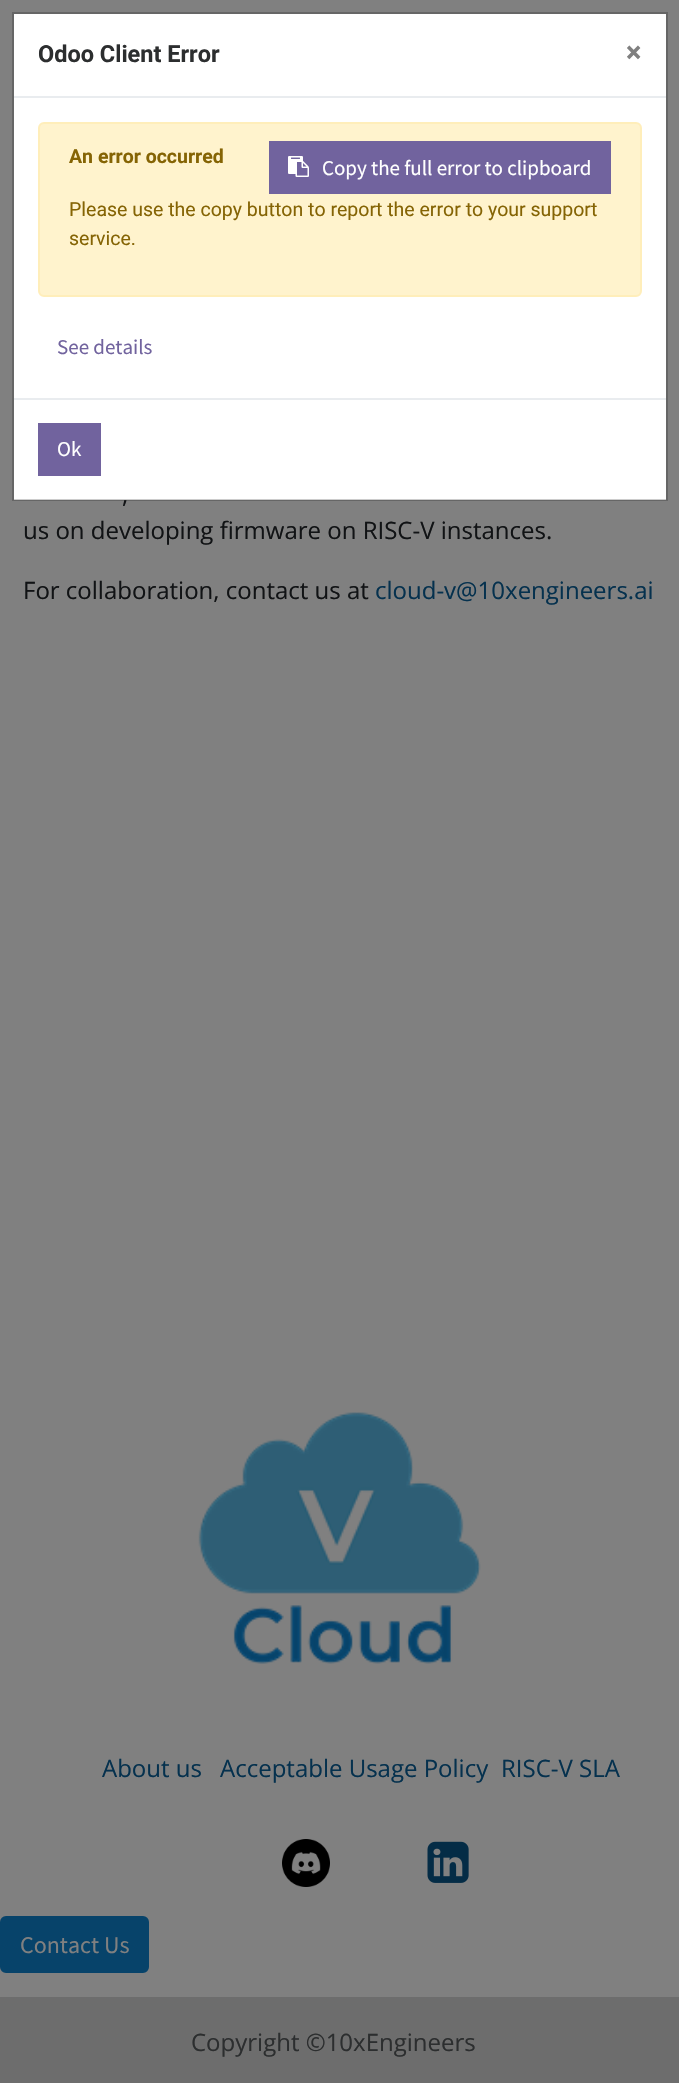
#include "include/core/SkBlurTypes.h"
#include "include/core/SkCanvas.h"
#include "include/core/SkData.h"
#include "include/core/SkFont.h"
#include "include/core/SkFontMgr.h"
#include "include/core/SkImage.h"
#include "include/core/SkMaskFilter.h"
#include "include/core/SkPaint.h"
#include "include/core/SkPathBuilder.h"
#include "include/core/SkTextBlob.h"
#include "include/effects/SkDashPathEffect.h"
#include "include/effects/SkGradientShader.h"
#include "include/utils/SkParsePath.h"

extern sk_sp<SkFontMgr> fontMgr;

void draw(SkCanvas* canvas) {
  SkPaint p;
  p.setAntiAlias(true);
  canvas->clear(SkColorSetRGB(128, 128, 128));
  p.setColor(SK_ColorWHITE);
  canvas->drawRect(SkRect::MakeLTRB(14, 14, 666, 500), p);
  canvas->drawImageRect(SkImages::DeferredFromEncodedData(SkData::MakeFromFileName("images/2.png")), SkRect::MakeLTRB(198, 1412, 481, 1664), SkSamplingOptions());
  canvas->drawImageRect(SkImages::DeferredFromEncodedData(SkData::MakeFromFileName("images/3.png")), SkRect::MakeLTRB(282, 1839, 330, 1887), SkSamplingOptions());
  canvas->drawImageRect(SkImages::DeferredFromEncodedData(SkData::MakeFromFileName("images/4.png")), SkRect::MakeLTRB(427, 1841, 469, 1883), SkSamplingOptions());
  p.setColor(SkColorSetRGB(7, 67, 106));
  canvas->drawRoundRect(SkRect::MakeLTRB(1, 1917, 148, 1972), 5, 5, p);
  p.setStyle(SkPaint::kStroke_Style);
  p.setStrokeWidth(2);
  canvas->drawRoundRect(SkRect::MakeLTRB(1, 1917, 148, 1972), 5, 5, p);
  p.setStyle(SkPaint::kFill_Style);
  p.setColor(SkColorSetRGB(109, 109, 109));
  canvas->drawRect(SkRect::MakeLTRB(0, 1997, 679, 2083), p);
  SkFont font1(fontMgr->matchFamilyStyle("Open Sans", SkFontStyle::Normal()), 24);
  font1.setSubpixel(true);
  p.setColor(SkColorSetRGB(17, 19, 21));
  canvas->drawString(",", 122, 503, font1, p);
  p.setStyle(SkPaint::kStroke_Style);
  p.setColor(SkColorSetARGB(51, 0, 0, 0));
  canvas->drawRect(SkRect::MakeLTRB(13, 13, 667, 500), p);
  p.setStyle(SkPaint::kFill_Style);
  p.setColor(SkColorSetRGB(255, 243, 205));
  canvas->drawRoundRect(SkRect::MakeLTRB(39, 123, 641, 296), 5, 5, p);
  p.setStyle(SkPaint::kStroke_Style);
  p.setColor(SkColorSetRGB(255, 238, 186));
  canvas->drawRoundRect(SkRect::MakeLTRB(39, 123, 641, 296), 5, 5, p);
  p.setStyle(SkPaint::kFill_Style);
  p.setColor(SkColorSetRGB(113, 99, 158));
  canvas->drawRect(SkRect::MakeLTRB(269, 141, 611, 194), p);
  SkFont font2(fontMgr->matchFamilyStyle("Source Sans Pro", SkFontStyle::Normal()), 21);
  font2.setSubpixel(true);
  p.setColor(SK_ColorWHITE);
  canvas->drawString("Copy the full error to clipboard", 322, 175, font2, p);
  canvas->drawImageRect(SkImages::DeferredFromEncodedData(SkData::MakeFromFileName("images/1.png")), SkRect::MakeLTRB(288, 156, 309, 177), SkSamplingOptions());
  SkFont font3(fontMgr->matchFamilyStyle("Roboto", SkFontStyle::Normal()), 19.5f);
  font3.setSubpixel(true);
  p.setColor(SkColorSetRGB(133, 100, 4));
  canvas->drawString("service.", 69, 245, font3, p);
  canvas->drawString("Please use the copy button to report the error to your support", 69, 216, font3, p);
  SkFont font4(fontMgr->matchFamilyStyle("Roboto", SkFontStyle::Bold()), 19.5f);
  font4.setSubpixel(true);
  canvas->drawString("An error occurred", 69, 163, font4, p);
  p.setColor(SkColorSetRGB(113, 99, 158));
  canvas->drawString("See details", 57, 354, font2, p);
  SkFont font5(fontMgr->matchFamilyStyle("Roboto", SkFontStyle::Bold()), 29);
  font5.setSubpixel(true);
  p.setColor(SkColorSetRGB(128, 128, 128));
  canvas->drawString("×", 626, 62, font5, p);
  SkFont font6(fontMgr->matchFamilyStyle("Roboto", SkFontStyle::Bold()), 23.5f);
  font6.setSubpixel(true);
  p.setColor(SkColorSetRGB(44, 46, 47));
  canvas->drawString("Odoo Client Error", 38, 62, font6, p);
  p.setColor(SkColorSetRGB(113, 99, 158));
  canvas->drawRect(SkRect::MakeLTRB(38, 423, 101, 476), p);
  p.setColor(SK_ColorWHITE);
  canvas->drawString("Ok", 57, 456, font2, p);
  p.setColor(SkColorSetRGB(233, 236, 239));
  canvas->drawRect(SkRect::MakeLTRB(14, 398, 666, 400), p);
  canvas->drawRect(SkRect::MakeLTRB(14, 96, 666, 98), p);
  p.setColor(SkColorSetRGB(17, 19, 21));
  canvas->drawString("us on developing firmware on RISC-V instances.", 23, 539, font1, p);
  canvas->drawString("For collaboration, contact us at", 23, 599, font1, p);
  p.setColor(SkColorSetRGB(5, 49, 78));
  canvas->drawString("cloud-v@10xengineers.ai", 375, 599, font1, p);
  canvas->drawString("About us", 102, 1777, font1, p);
  canvas->drawString("Acceptable Usage Policy", 220, 1777, font1, p);
  canvas->drawString("RISC-V SLA", 501, 1777, font1, p);
  SkFont font7(fontMgr->matchFamilyStyle("Source Sans Pro", SkFontStyle::Normal()), 24);
  font7.setSubpixel(true);
  p.setColor(SkColorSetRGB(128, 128, 128));
  canvas->drawString("Contact Us", 20, 1953, font7, p);
  p.setColor(SkColorSetRGB(44, 46, 47));
  canvas->drawString("Copyright ©10xEngineers", 191, 2051, font1, p);
}
